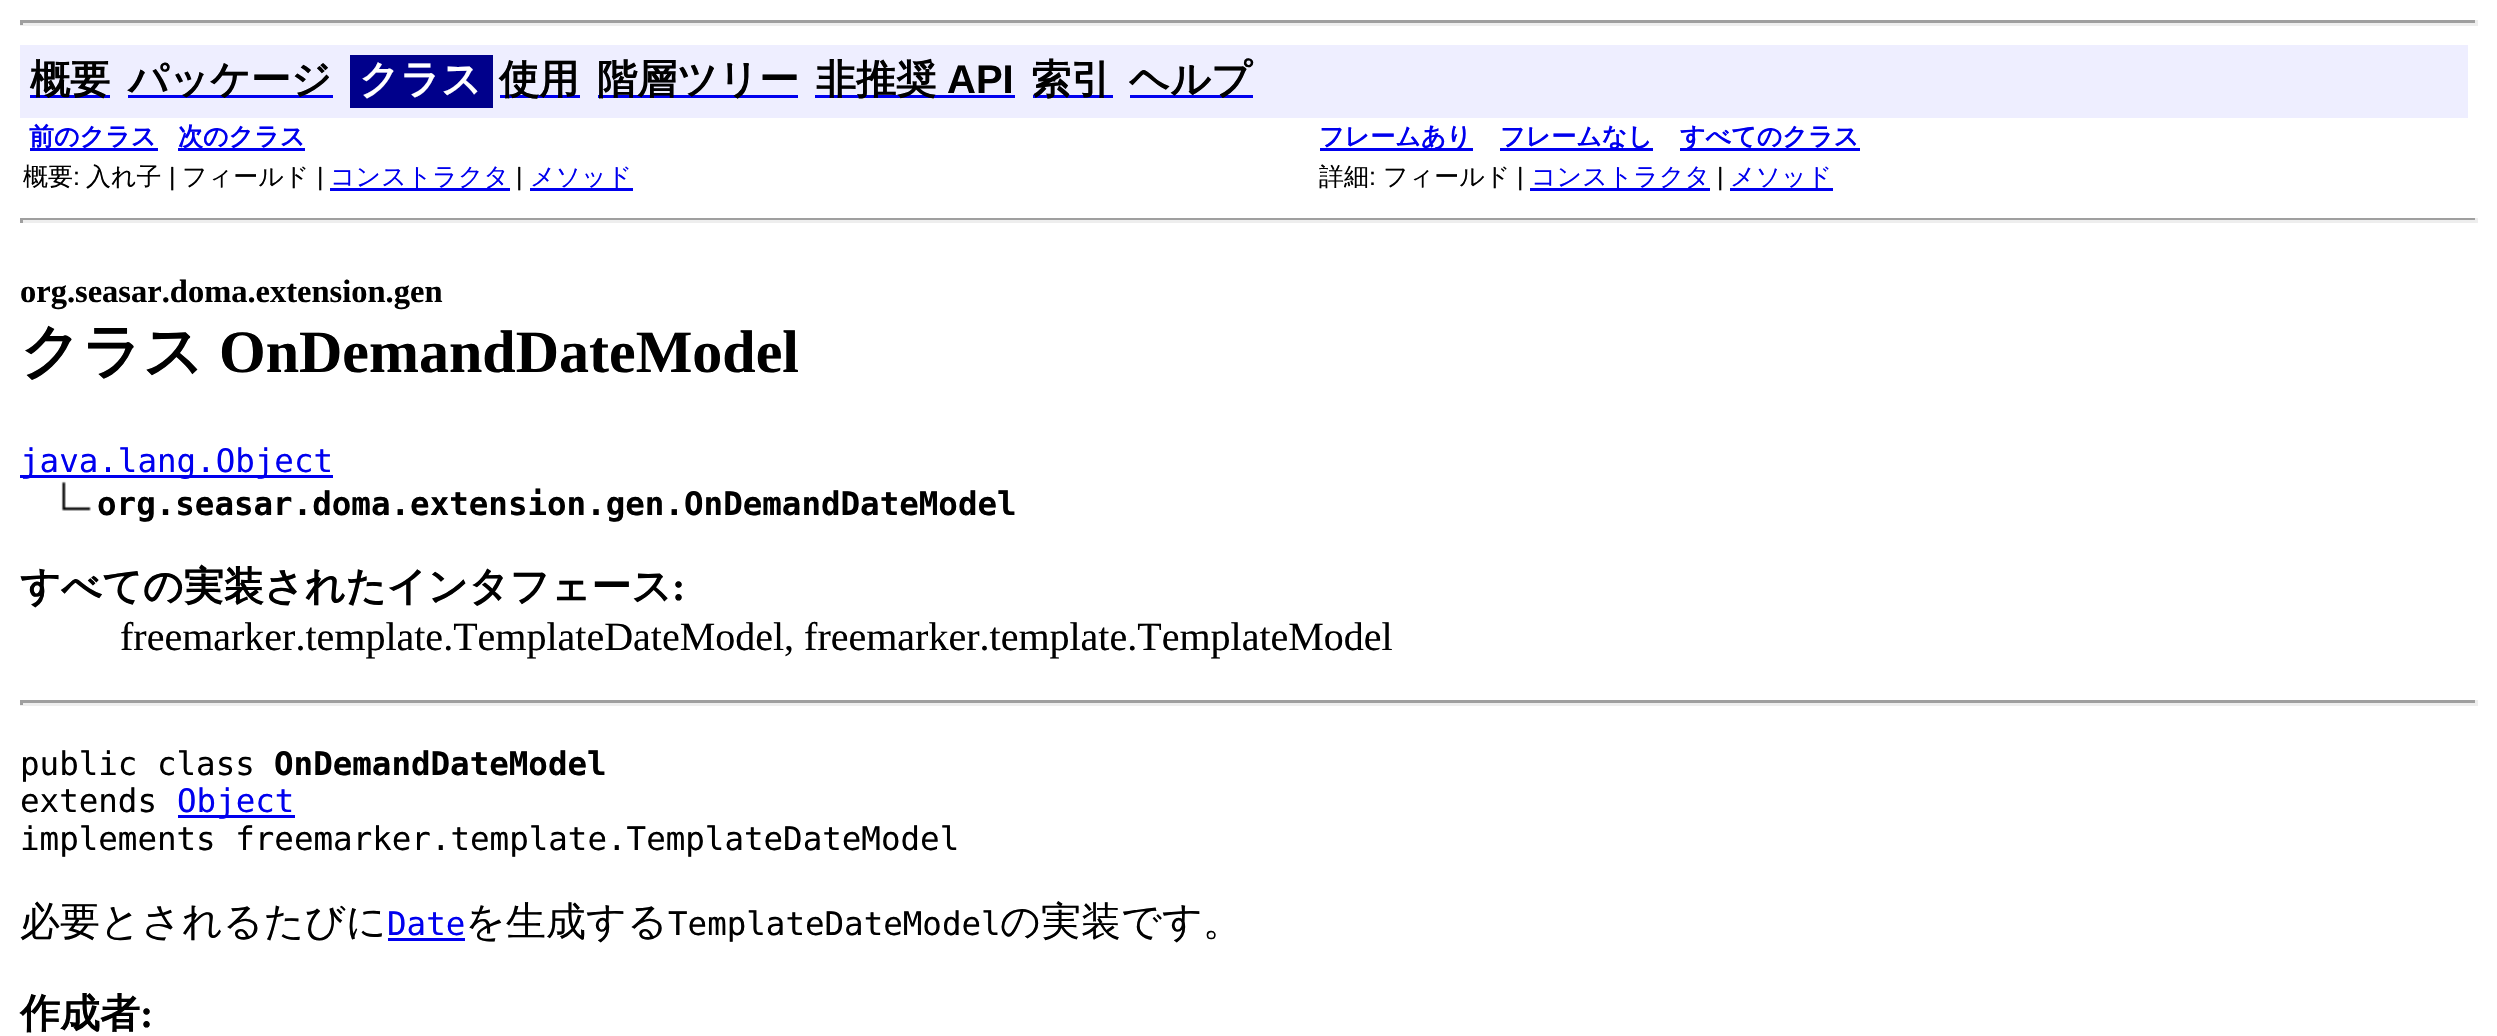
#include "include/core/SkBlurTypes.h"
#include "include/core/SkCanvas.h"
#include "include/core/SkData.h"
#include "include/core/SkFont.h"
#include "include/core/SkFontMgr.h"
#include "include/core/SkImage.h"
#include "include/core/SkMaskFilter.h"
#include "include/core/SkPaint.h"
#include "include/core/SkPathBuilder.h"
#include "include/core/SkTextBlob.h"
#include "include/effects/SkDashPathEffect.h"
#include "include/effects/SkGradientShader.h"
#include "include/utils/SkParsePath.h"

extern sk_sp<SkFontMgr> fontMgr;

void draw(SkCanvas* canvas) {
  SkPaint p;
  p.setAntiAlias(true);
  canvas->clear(SK_ColorWHITE);
  p.setColor(SkColorSetRGB(159, 159, 159));
  canvas->drawRect(SkRect::MakeLTRB(20, 20, 2478, 23), p);
  p.setColor(SkColorSetRGB(238, 238, 238));
  canvas->drawRect(SkRect::MakeLTRB(2475, 20, 2478, 25), p);
  canvas->drawRect(SkRect::MakeLTRB(20, 23, 2478, 26), p);
  p.setColor(SkColorSetRGB(159, 159, 159));
  canvas->drawRect(SkRect::MakeLTRB(20, 20, 23, 25), p);
  p.setColor(SkColorSetRGB(238, 238, 255));
  canvas->drawRect(SkRect::MakeLTRB(20, 45, 2468, 118), p);
  p.setColor(SkColorSetRGB(0, 0, 238));
  canvas->drawRect(SkRect::MakeLTRB(30, 95, 110, 98), p);
  canvas->drawRect(SkRect::MakeLTRB(128, 95, 333, 98), p);
  p.setColor(SkColorSetRGB(0, 0, 139));
  canvas->drawRect(SkRect::MakeLTRB(350, 55, 493, 108), p);
  p.setColor(SkColorSetRGB(0, 0, 238));
  canvas->drawRect(SkRect::MakeLTRB(500, 95, 580, 98), p);
  canvas->drawRect(SkRect::MakeLTRB(598, 95, 798, 98), p);
  canvas->drawRect(SkRect::MakeLTRB(815, 95, 1015, 98), p);
  canvas->drawRect(SkRect::MakeLTRB(1033, 95, 1113, 98), p);
  canvas->drawRect(SkRect::MakeLTRB(1130, 95, 1253, 98), p);
  canvas->drawRect(SkRect::MakeLTRB(30, 148, 158, 151), p);
  canvas->drawRect(SkRect::MakeLTRB(178, 148, 305, 151), p);
  canvas->drawRect(SkRect::MakeLTRB(1320, 148, 1473, 151), p);
  canvas->drawRect(SkRect::MakeLTRB(1500, 148, 1653, 151), p);
  canvas->drawRect(SkRect::MakeLTRB(1680, 148, 1860, 151), p);
  canvas->drawRect(SkRect::MakeLTRB(330, 188, 510, 191), p);
  canvas->drawRect(SkRect::MakeLTRB(530, 188, 633, 191), p);
  canvas->drawRect(SkRect::MakeLTRB(1530, 188, 1710, 191), p);
  canvas->drawRect(SkRect::MakeLTRB(1730, 188, 1833, 191), p);
  p.setColor(SkColorSetRGB(159, 159, 159));
  canvas->drawRect(SkRect::MakeLTRB(20, 218, 2478, 220), p);
  p.setColor(SkColorSetRGB(238, 238, 238));
  canvas->drawRect(SkRect::MakeLTRB(2475, 218, 2478, 223), p);
  canvas->drawRect(SkRect::MakeLTRB(20, 220, 2478, 223), p);
  p.setColor(SkColorSetRGB(159, 159, 159));
  canvas->drawRect(SkRect::MakeLTRB(20, 218, 23, 223), p);
  p.setColor(SkColorSetRGB(0, 0, 238));
  canvas->drawRect(SkRect::MakeLTRB(20, 475, 333, 478), p);
  canvas->drawImageRect(SkImages::DeferredFromEncodedData(SkData::MakeFromFileName("images/1.png")), SkRect::MakeLTRB(61, 481, 91, 511), SkSamplingOptions());
  p.setColor(SkColorSetRGB(159, 159, 159));
  canvas->drawRect(SkRect::MakeLTRB(20, 700, 2478, 703), p);
  p.setColor(SkColorSetRGB(238, 238, 238));
  canvas->drawRect(SkRect::MakeLTRB(2475, 700, 2478, 705), p);
  canvas->drawRect(SkRect::MakeLTRB(20, 703, 2478, 706), p);
  p.setColor(SkColorSetRGB(159, 159, 159));
  canvas->drawRect(SkRect::MakeLTRB(20, 700, 23, 705), p);
  p.setColor(SkColorSetRGB(0, 0, 238));
  canvas->drawRect(SkRect::MakeLTRB(178, 815, 295, 818), p);
  canvas->drawRect(SkRect::MakeLTRB(388, 938, 465, 941), p);
  SkFont font1(fontMgr->matchFamilyStyle("WenQuanYi Zen Hei", SkFontStyle::Bold()), 40);
  font1.setSubpixel(true);
  p.setColor(SK_ColorBLACK);
  canvas->drawString("概要", 30, 93, font1, p);
  canvas->drawString("パッケージ", 128, 93, font1, p);
  p.setColor(SK_ColorWHITE);
  canvas->drawString("クラス", 359, 93, font1, p);
  p.setColor(SK_ColorBLACK);
  canvas->drawString("使用", 499, 93, font1, p);
  canvas->drawString("階層ツリー", 597, 93, font1, p);
  canvas->drawString("非推奨", 816, 93, font1, p);
  SkFont font2(fontMgr->matchFamilyStyle("Liberation Sans", SkFontStyle::Bold()), 40);
  font2.setSubpixel(true);
  canvas->drawString("API", 947, 93, font2, p);
  canvas->drawString("索引", 1031, 93, font1, p);
  canvas->drawString("ヘルプ", 1129, 93, font1, p);
  SkFont font3(fontMgr->matchFamilyStyle("WenQuanYi Zen Hei", SkFontStyle::Bold()), 25);
  font3.setSubpixel(true);
  p.setColor(SkColorSetRGB(0, 0, 238));
  canvas->drawString("前のクラス", 29, 145, font3, p);
  canvas->drawString("次のクラス", 178, 145, font3, p);
  canvas->drawString("フレームあり", 1319, 145, font3, p);
  canvas->drawString("フレームなし", 1500, 145, font3, p);
  canvas->drawString("すべてのクラス", 1680, 145, font3, p);
  SkFont font4(fontMgr->matchFamilyStyle("WenQuanYi Zen Hei", SkFontStyle(500, SkFontStyle::kNormal_Width, SkFontStyle::kUpright_Slant)), 25);
  font4.setSubpixel(true);
  p.setColor(SK_ColorBLACK);
  canvas->drawString("概要", 23, 185, font4, p);
  SkFont font5(fontMgr->matchFamilyStyle("Liberation Sans", SkFontStyle::Normal()), 25);
  font5.setSubpixel(true);
  canvas->drawString(":", 73, 185, font5, p);
  canvas->drawString("入れ子", 86, 185, font4, p);
  canvas->drawString("|", 169, 185, font5, p);
  canvas->drawString("フィールド", 182, 185, font4, p);
  canvas->drawString("|", 317, 185, font5, p);
  p.setColor(SkColorSetRGB(0, 0, 238));
  canvas->drawString("コンストラクタ", 330, 185, font4, p);
  p.setColor(SK_ColorBLACK);
  canvas->drawString("|", 516, 185, font5, p);
  p.setColor(SkColorSetRGB(0, 0, 238));
  canvas->drawString("メソッド", 530, 185, font4, p);
  p.setColor(SK_ColorBLACK);
  canvas->drawString("詳細", 1319, 185, font4, p);
  canvas->drawString(":", 1369, 185, font5, p);
  canvas->drawString("フィールド", 1383, 185, font4, p);
  canvas->drawString("|", 1517, 185, font5, p);
  p.setColor(SkColorSetRGB(0, 0, 238));
  canvas->drawString("コンストラクタ", 1531, 185, font4, p);
  p.setColor(SK_ColorBLACK);
  canvas->drawString("|", 1717, 185, font5, p);
  p.setColor(SkColorSetRGB(0, 0, 238));
  canvas->drawString("メソッド", 1730, 185, font4, p);
  SkFont font6(fontMgr->matchFamilyStyle("Liberation Serif", SkFontStyle::Bold()), 32.5f);
  font6.setSubpixel(true);
  p.setColor(SK_ColorBLACK);
  canvas->drawString("org.seasar.doma.extension.gen", 20, 302, font6, p);
  SkFont font7(fontMgr->matchFamilyStyle("WenQuanYi Zen Hei", SkFontStyle::Bold()), 60);
  font7.setSubpixel(true);
  canvas->drawString("クラス", 20, 372, font7, p);
  SkFont font8(fontMgr->matchFamilyStyle("Liberation Serif", SkFontStyle::Bold()), 60);
  font8.setSubpixel(true);
  canvas->drawString("OnDemandDateModel", 219, 372, font8, p);
  SkFont font9(fontMgr->matchFamilyStyle("DejaVu Sans Mono", SkFontStyle::Normal()), 32.5f);
  font9.setSubpixel(true);
  p.setColor(SkColorSetRGB(0, 0, 238));
  canvas->drawString("java.lang.Object", 20, 472, font9, p);
  SkFont font10(fontMgr->matchFamilyStyle("DejaVu Sans Mono", SkFontStyle::Bold()), 32.5f);
  font10.setSubpixel(true);
  p.setColor(SK_ColorBLACK);
  canvas->drawString("org.seasar.doma.extension.gen.OnDemandDateModel", 97, 515, font10, p);
  canvas->drawString("すべての実装されたインタフェース", 20, 600, font1, p);
  SkFont font11(fontMgr->matchFamilyStyle("Liberation Serif", SkFontStyle::Bold()), 40);
  font11.setSubpixel(true);
  canvas->drawString(":", 672, 600, font11, p);
  SkFont font12(fontMgr->matchFamilyStyle("Liberation Serif", SkFontStyle::Normal()), 40);
  font12.setSubpixel(true);
  canvas->drawString("freemarker.template.TemplateDateModel, freemarker.template.TemplateModel", 120, 650, font12, p);
  canvas->drawString("public class", 20, 775, font9, p);
  canvas->drawString("OnDemandDateModel", 274, 775, font10, p);
  canvas->drawString("extends", 20, 812, font9, p);
  p.setColor(SkColorSetRGB(0, 0, 238));
  canvas->drawString("Object", 177, 812, font9, p);
  p.setColor(SK_ColorBLACK);
  canvas->drawString("implements freemarker.template.TemplateDateModel", 20, 850, font9, p);
  SkFont font13(fontMgr->matchFamilyStyle("WenQuanYi Zen Hei", SkFontStyle(500, SkFontStyle::kNormal_Width, SkFontStyle::kUpright_Slant)), 40);
  font13.setSubpixel(true);
  canvas->drawString("必要とされるたびに", 20, 935, font13, p);
  p.setColor(SkColorSetRGB(0, 0, 238));
  canvas->drawString("Date", 387, 935, font9, p);
  p.setColor(SK_ColorBLACK);
  canvas->drawString("を生成する", 465, 935, font13, p);
  canvas->drawString("TemplateDateModel", 668, 935, font9, p);
  canvas->drawString("の実装です。", 1000, 935, font13, p);
  canvas->drawString("作成者", 20, 1027, font1, p);
  canvas->drawString(":", 140, 1027, font11, p);
}
